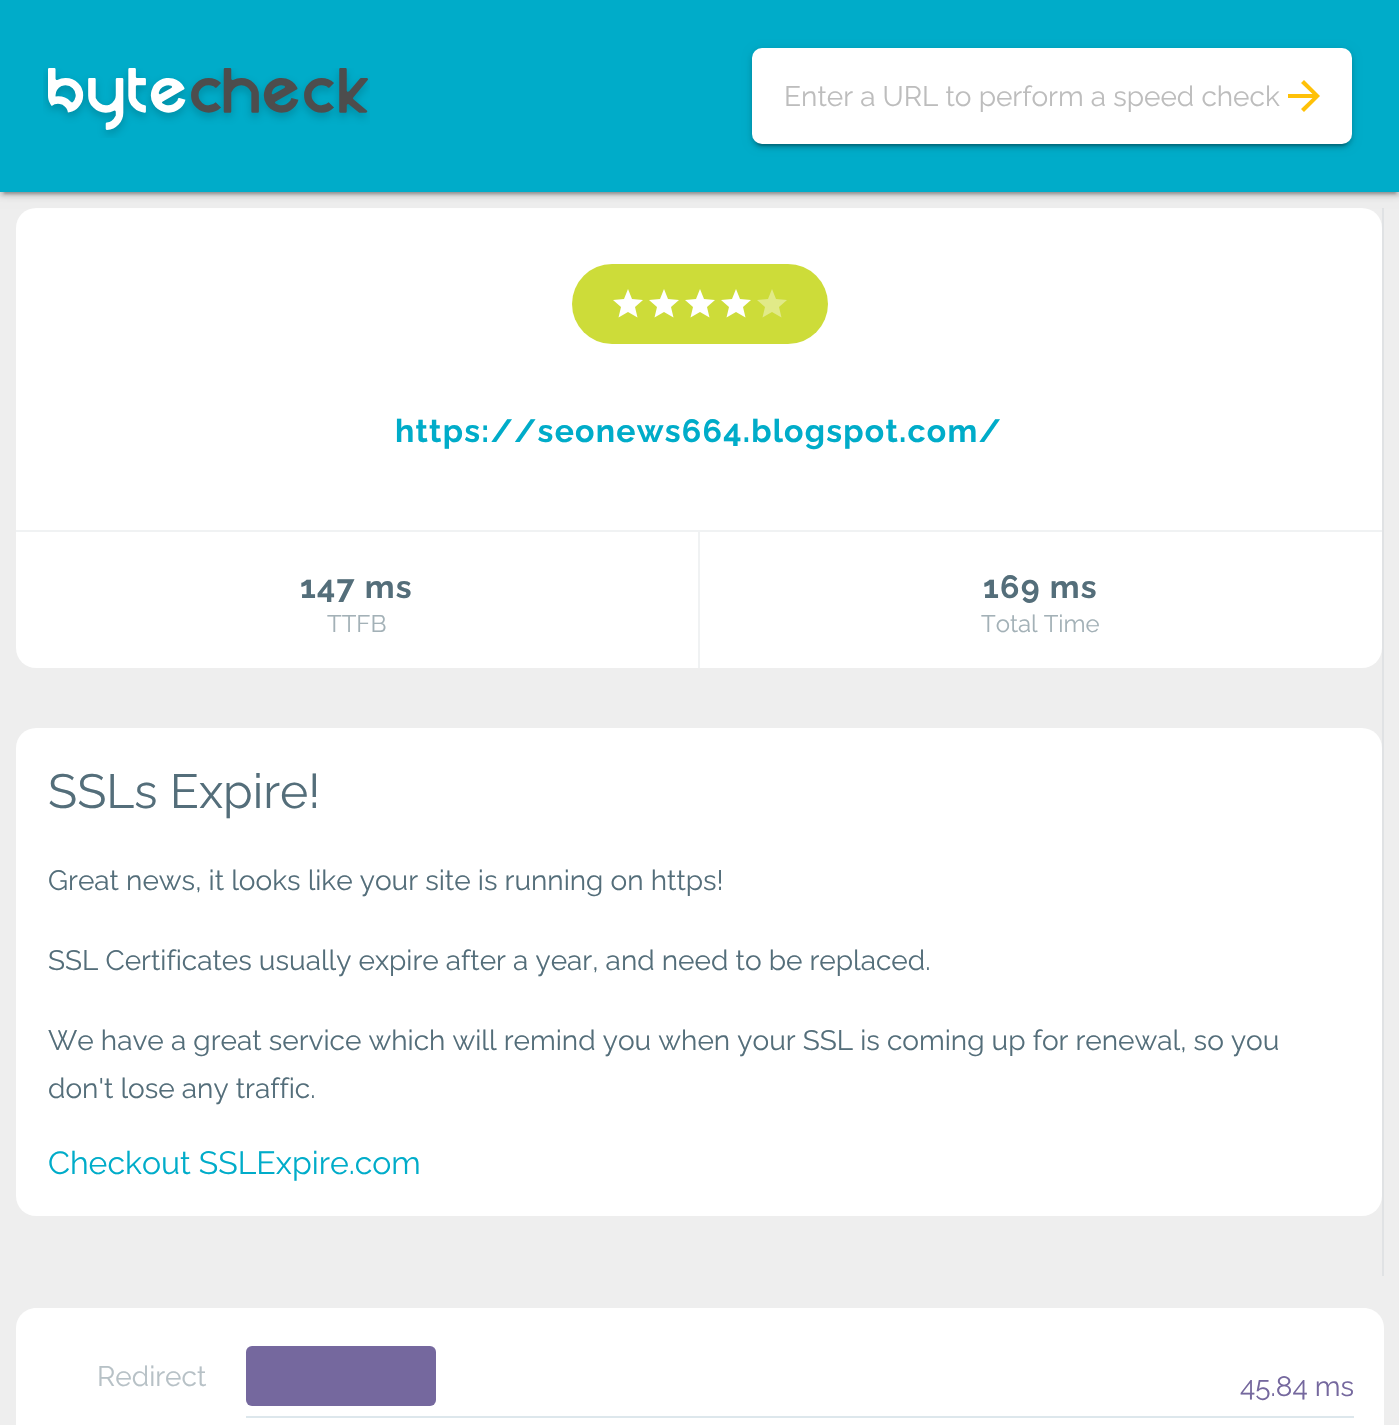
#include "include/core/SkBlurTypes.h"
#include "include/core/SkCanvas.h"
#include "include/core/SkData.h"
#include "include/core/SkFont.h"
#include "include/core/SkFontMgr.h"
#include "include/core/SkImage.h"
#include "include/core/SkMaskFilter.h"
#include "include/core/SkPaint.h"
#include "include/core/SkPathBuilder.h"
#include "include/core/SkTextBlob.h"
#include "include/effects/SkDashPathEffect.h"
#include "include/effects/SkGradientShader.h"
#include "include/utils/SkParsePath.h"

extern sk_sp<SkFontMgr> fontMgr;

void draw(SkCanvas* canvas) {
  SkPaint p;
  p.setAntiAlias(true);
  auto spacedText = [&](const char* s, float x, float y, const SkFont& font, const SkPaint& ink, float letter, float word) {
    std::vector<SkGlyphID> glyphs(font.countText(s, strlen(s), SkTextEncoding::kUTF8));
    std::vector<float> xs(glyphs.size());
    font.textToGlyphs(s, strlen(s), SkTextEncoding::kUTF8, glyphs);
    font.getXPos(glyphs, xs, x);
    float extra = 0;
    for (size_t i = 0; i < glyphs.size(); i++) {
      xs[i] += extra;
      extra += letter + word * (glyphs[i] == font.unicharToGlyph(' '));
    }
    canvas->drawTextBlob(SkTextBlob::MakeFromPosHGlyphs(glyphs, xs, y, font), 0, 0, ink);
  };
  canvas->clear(SkColorSetRGB(238, 238, 238));
  p.setColor(SkColorSetRGB(224, 226, 228));
  canvas->drawRect(SkRect::MakeLTRB(1382, 208, 1384, 1276), p);
  p.setColor(SK_ColorWHITE);
  canvas->drawRoundRect(SkRect::MakeLTRB(16, 208, 1382, 668), 20, 20, p);
  p.setColor(SkColorSetARGB(31, 0, 0, 0));
  p.setMaskFilter(SkMaskFilter::MakeBlur(kNormal_SkBlurStyle, 5));
  canvas->drawRect(SkRect::MakeLTRB(0, 2, 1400, 194), p);
  p.setMaskFilter(nullptr);
  p.setColor(SkColorSetARGB(51, 0, 0, 0));
  p.setMaskFilter(SkMaskFilter::MakeBlur(kNormal_SkBlurStyle, 1));
  canvas->drawRect(SkRect::MakeLTRB(4, 10, 1396, 194), p);
  p.setMaskFilter(nullptr);
  p.setColor(SkColorSetARGB(36, 0, 0, 0));
  p.setMaskFilter(SkMaskFilter::MakeBlur(kNormal_SkBlurStyle, 2));
  canvas->drawRect(SkRect::MakeLTRB(0, 4, 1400, 196), p);
  p.setMaskFilter(nullptr);
  p.setColor(SkColorSetRGB(0, 172, 201));
  canvas->drawRect(SkRect::MakeLTRB(0, 0, 1399, 192), p);
  canvas->drawImageRect(SkImages::DeferredFromEncodedData(SkData::MakeFromFileName("images/1.png")), SkRect::MakeLTRB(43, 68, 370, 138), SkSamplingOptions());
  p.setColor(SkColorSetARGB(31, 0, 0, 0));
  p.setMaskFilter(SkMaskFilter::MakeBlur(kNormal_SkBlurStyle, 5));
  canvas->drawRoundRect(SkRect::MakeLTRB(752, 50, 1352, 146), 10, 10, p);
  p.setMaskFilter(nullptr);
  p.setColor(SkColorSetARGB(51, 0, 0, 0));
  p.setMaskFilter(SkMaskFilter::MakeBlur(kNormal_SkBlurStyle, 1));
  canvas->drawRoundRect(SkRect::MakeLTRB(756, 58, 1348, 146), 6, 6, p);
  p.setMaskFilter(nullptr);
  p.setColor(SkColorSetARGB(36, 0, 0, 0));
  p.setMaskFilter(SkMaskFilter::MakeBlur(kNormal_SkBlurStyle, 2));
  canvas->drawRoundRect(SkRect::MakeLTRB(752, 52, 1352, 148), 10, 10, p);
  p.setMaskFilter(nullptr);
  p.setColor(SK_ColorWHITE);
  canvas->drawRoundRect(SkRect::MakeLTRB(752, 48, 1352, 144), 10, 10, p);
  p.setColor(SkColorSetRGB(255, 193, 7));
  canvas->drawPath(SkPathBuilder().moveTo(1304, 80).lineTo(1320, 96).lineTo(1304, 112).lineTo(1301, 109).lineTo(1312.5f, 98).lineTo(1288, 98).lineTo(1288, 94).lineTo(1312.5f, 94).lineTo(1301, 83).close().detach(), p);
  p.setColor(SkColorSetRGB(205, 220, 57));
  canvas->drawRoundRect(SkRect::MakeLTRB(572, 264, 828, 344), 40, 40, p);
  p.setColor(SK_ColorWHITE);
  canvas->drawPath(SkPathBuilder().moveTo(628, 312).lineTo(618.5f, 317.5f).lineTo(621, 307).lineTo(613, 300).lineTo(624, 299).lineTo(628, 289).lineTo(632, 299).lineTo(643, 300).lineTo(635, 307).lineTo(637.5f, 317.5f).close().detach(), p);
  canvas->drawPath(SkPathBuilder().moveTo(664, 312).lineTo(654.5f, 317.5f).lineTo(657, 307).lineTo(649, 300).lineTo(660, 299).lineTo(664, 289).lineTo(668, 299).lineTo(679, 300).lineTo(671, 307).lineTo(673.5f, 317.5f).close().detach(), p);
  canvas->drawPath(SkPathBuilder().moveTo(700, 312).lineTo(690.5f, 317.5f).lineTo(693, 307).lineTo(685, 300).lineTo(696, 299).lineTo(700, 289).lineTo(704, 299).lineTo(715, 300).lineTo(707, 307).lineTo(709.5f, 317.5f).close().detach(), p);
  canvas->drawPath(SkPathBuilder().moveTo(736, 312).lineTo(726.5f, 317.5f).lineTo(729, 307).lineTo(721, 300).lineTo(732, 299).lineTo(736, 289).lineTo(740, 299).lineTo(751, 300).lineTo(743, 307).lineTo(745.5f, 317.5f).close().detach(), p);
  p.setColor(SkColorSetRGB(225, 234, 136));
  canvas->drawPath(SkPathBuilder().moveTo(772, 312).lineTo(762.5f, 317.5f).lineTo(765, 307).lineTo(757, 300).lineTo(768, 299).lineTo(772, 289).lineTo(776, 299).lineTo(787, 300).lineTo(779, 307).lineTo(781.5f, 317.5f).close().detach(), p);
  p.setColor(SkColorSetRGB(240, 242, 243));
  canvas->drawRect(SkRect::MakeLTRB(16, 530, 1382, 532), p);
  canvas->drawRect(SkRect::MakeLTRB(698, 532, 700, 668), p);
  p.setColor(SK_ColorWHITE);
  canvas->drawRoundRect(SkRect::MakeLTRB(16, 728, 1382, 1216), 20, 20, p);
  canvas->drawPath(SkPathBuilder().moveTo(36, 1308).lineTo(1364, 1308).cubicTo(1375, 1308, 1384, 1317, 1384, 1328).lineTo(1384, 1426).lineTo(16, 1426).lineTo(16, 1328).cubicTo(16, 1317, 25, 1308, 36, 1308).close().detach(), p);
  p.setColor(SkColorSetRGB(221, 231, 236));
  canvas->drawRect(SkRect::MakeLTRB(246, 1416, 1354, 1418), p);
  p.setColor(SkColorSetRGB(117, 104, 158));
  canvas->drawRoundRect(SkRect::MakeLTRB(246, 1346, 436, 1406), 6, 6, p);
  SkFont font1(fontMgr->matchFamilyStyle("Raleway", SkFontStyle::Normal()), 28);
  font1.setSubpixel(true);
  p.setColor(SkColorSetRGB(189, 189, 189));
  canvas->drawString("Enter a URL to perform a speed check", 784, 106, font1, p);
  SkFont font2(fontMgr->matchFamilyStyle("Raleway", SkFontStyle::Bold()), 32);
  font2.setSubpixel(true);
  p.setColor(SkColorSetRGB(0, 172, 201));
  spacedText("https://seonews664.blogspot.com/", 395, 442, font2, p, 1.25f, 0);
  p.setColor(SkColorSetRGB(84, 110, 122));
  spacedText("147 ms", 300, 598, font2, p, 1.25f, 0);
  SkFont font3(fontMgr->matchFamilyStyle("Raleway", SkFontStyle::Normal()), 24);
  font3.setSubpixel(true);
  p.setColor(SkColorSetRGB(163, 177, 183));
  canvas->drawString("TTFB", 327, 632, font3, p);
  p.setColor(SkColorSetRGB(84, 110, 122));
  spacedText("169 ms", 983, 598, font2, p, 1.25f, 0);
  p.setColor(SkColorSetRGB(163, 177, 183));
  canvas->drawString("Total Time", 981, 632, font3, p);
  SkFont font4(fontMgr->matchFamilyStyle("Raleway", SkFontStyle::Normal()), 48);
  font4.setSubpixel(true);
  p.setColor(SkColorSetRGB(84, 110, 122));
  canvas->drawString("SSLs Expire!", 48, 808, font4, p);
  canvas->drawString("Great news, it looks like your site is running on https!", 48, 890, font1, p);
  canvas->drawString("SSL Certificates usually expire after a year, and need to be replaced.", 48, 970, font1, p);
  canvas->drawString("We have a great service which will remind you when your SSL is coming up for renewal, so you", 48, 1050, font1, p);
  canvas->drawString("don't lose any traffic.", 48, 1098, font1, p);
  SkFont font5(fontMgr->matchFamilyStyle("Raleway", SkFontStyle::Normal()), 32);
  font5.setSubpixel(true);
  p.setColor(SkColorSetRGB(0, 172, 201));
  canvas->drawString("Checkout SSLExpire.com", 48, 1174, font5, p);
  p.setColor(SkColorSetRGB(183, 193, 198));
  canvas->drawString("Redirect", 97, 1386, font1, p);
  p.setColor(SkColorSetRGB(117, 104, 158));
  canvas->drawString("45.84 ms", 1240, 1396, font1, p);
}
